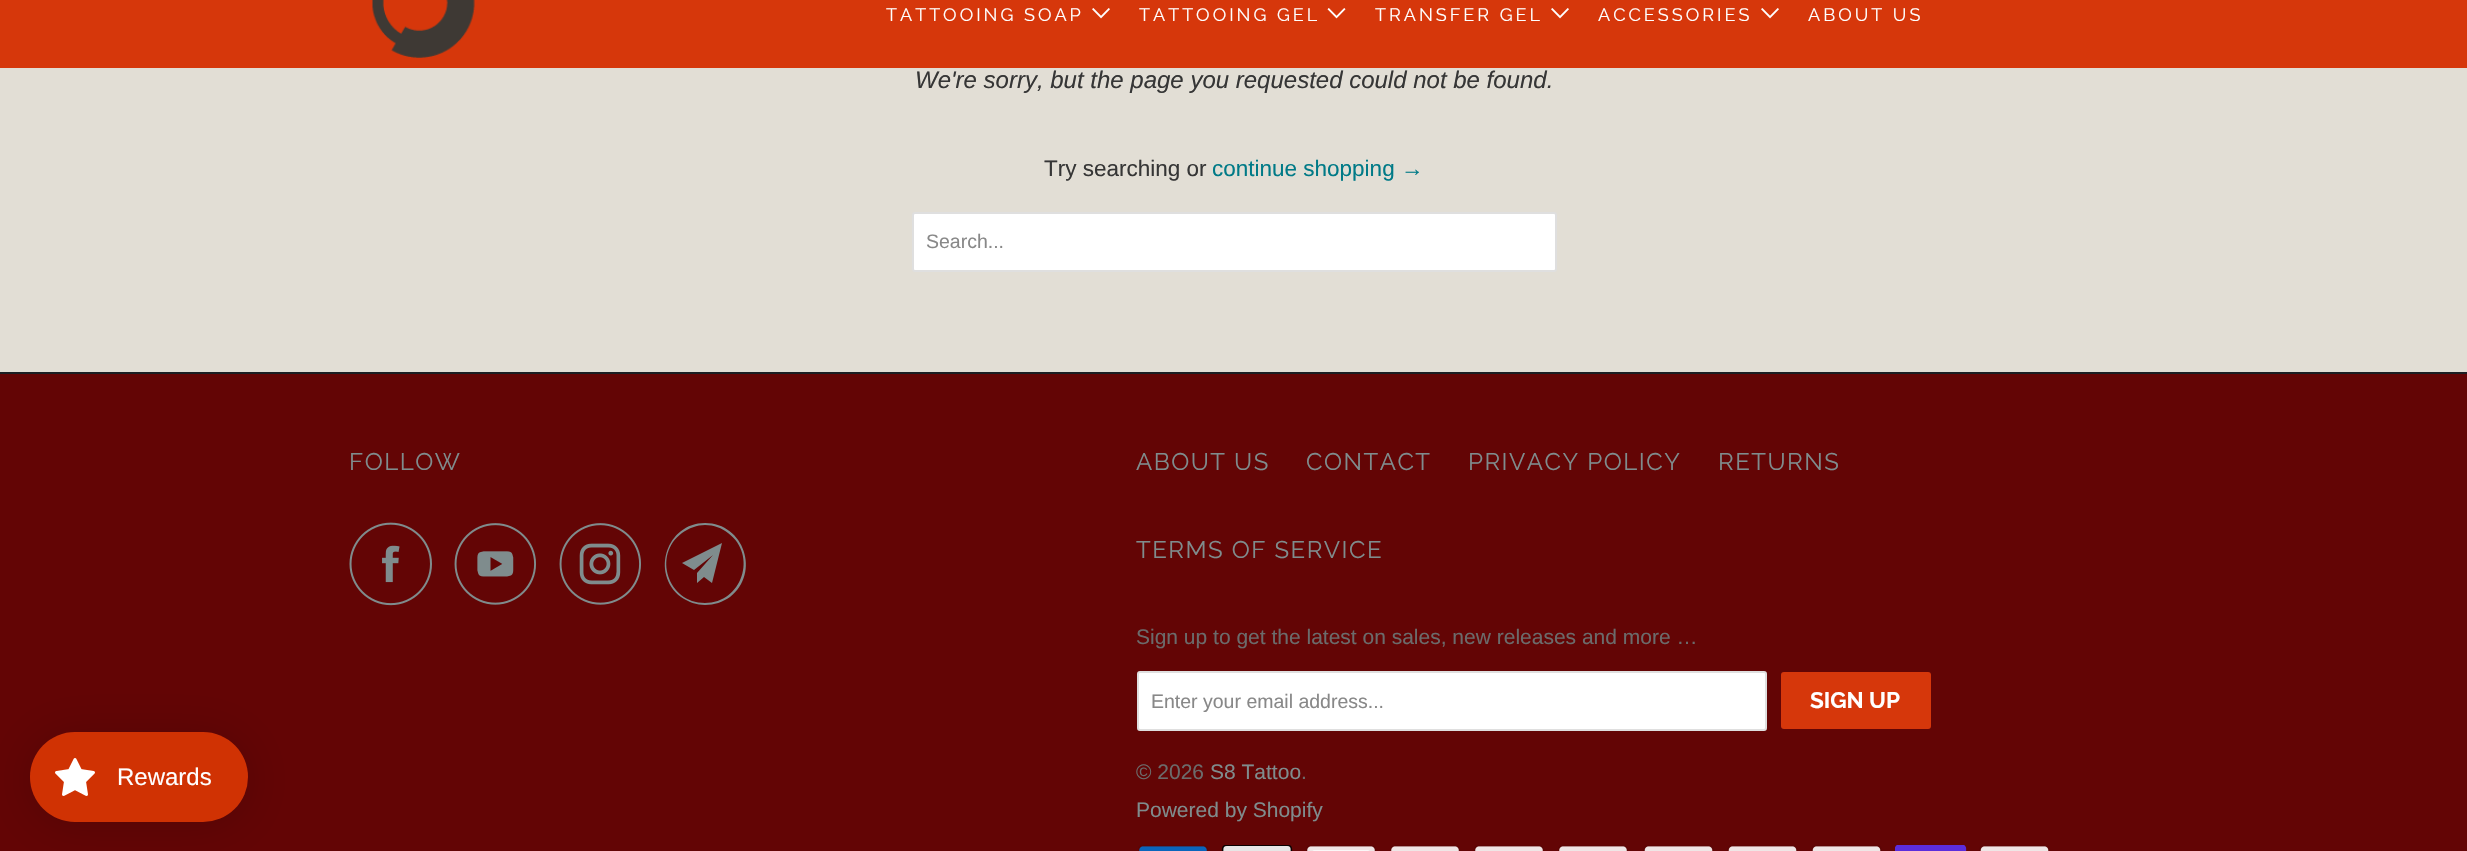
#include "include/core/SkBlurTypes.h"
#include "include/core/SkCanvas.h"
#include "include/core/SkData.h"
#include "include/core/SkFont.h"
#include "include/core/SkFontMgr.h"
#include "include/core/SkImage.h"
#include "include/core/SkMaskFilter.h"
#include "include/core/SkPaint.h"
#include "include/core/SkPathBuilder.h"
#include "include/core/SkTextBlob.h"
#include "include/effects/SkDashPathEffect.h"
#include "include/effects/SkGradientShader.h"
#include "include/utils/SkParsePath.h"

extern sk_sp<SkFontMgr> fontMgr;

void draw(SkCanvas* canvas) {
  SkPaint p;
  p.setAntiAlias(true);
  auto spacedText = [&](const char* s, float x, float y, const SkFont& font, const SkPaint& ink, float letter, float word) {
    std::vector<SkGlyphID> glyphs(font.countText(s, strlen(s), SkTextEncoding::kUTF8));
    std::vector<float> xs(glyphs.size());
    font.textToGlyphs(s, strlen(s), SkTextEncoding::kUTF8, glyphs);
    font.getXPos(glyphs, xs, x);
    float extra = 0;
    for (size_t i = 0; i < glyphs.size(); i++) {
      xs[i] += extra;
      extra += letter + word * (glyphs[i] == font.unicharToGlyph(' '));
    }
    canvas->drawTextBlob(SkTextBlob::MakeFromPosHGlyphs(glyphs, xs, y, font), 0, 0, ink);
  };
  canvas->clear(SkColorSetRGB(226, 222, 213));
  p.setColor(SkColorSetRGB(99, 5, 5));
  canvas->drawRect(SkRect::MakeLTRB(0, 374, 2467, 851), p);
  p.setColor(SkColorSetARGB(38, 0, 0, 0));
  p.setMaskFilter(SkMaskFilter::MakeBlur(kNormal_SkBlurStyle, 22.5f));
  canvas->drawRoundRect(SkRect::MakeLTRB(30, 735, 248, 825), 45, 45, p);
  p.setMaskFilter(nullptr);
  p.setColor(SkColorSetRGB(208, 50, 3));
  canvas->drawRoundRect(SkRect::MakeLTRB(30, 732, 248, 822), 45, 45, p);
  canvas->drawImageRect(SkImages::DeferredFromEncodedData(SkData::MakeFromFileName("images/1.png")), SkRect::MakeLTRB(55, 758, 95, 796), SkSamplingOptions());
  p.setColor(SkColorSetRGB(214, 55, 11));
  canvas->drawRect(SkRect::MakeLTRB(0, 0, 2467, 68), p);
  canvas->drawImageRect(SkImages::DeferredFromEncodedData(SkData::MakeFromFileName("images/2.png")), SkRect::MakeLTRB(372, 0, 475, 58), SkSamplingOptions());
  canvas->drawImageRect(SkImages::DeferredFromEncodedData(SkData::MakeFromFileName("images/3.png")), SkRect::MakeLTRB(1092, 8, 1110, 19), SkSamplingOptions());
  canvas->drawImageRect(SkImages::DeferredFromEncodedData(SkData::MakeFromFileName("images/4.png")), SkRect::MakeLTRB(1327, 8, 1346, 19), SkSamplingOptions());
  canvas->drawImageRect(SkImages::DeferredFromEncodedData(SkData::MakeFromFileName("images/3.png")), SkRect::MakeLTRB(1551, 8, 1569, 19), SkSamplingOptions());
  canvas->drawImageRect(SkImages::DeferredFromEncodedData(SkData::MakeFromFileName("images/3.png")), SkRect::MakeLTRB(1761, 8, 1779, 19), SkSamplingOptions());
  p.setColor(SK_ColorWHITE);
  canvas->drawRoundRect(SkRect::MakeLTRB(913, 213, 1556, 271), 2, 2, p);
  p.setStyle(SkPaint::kStroke_Style);
  p.setStrokeWidth(2);
  p.setColor(SkColorSetRGB(223, 223, 223));
  canvas->drawRoundRect(SkRect::MakeLTRB(913, 213, 1556, 271), 2, 2, p);
  p.setStyle(SkPaint::kFill_Style);
  p.setColor(SkColorSetRGB(27, 31, 35));
  canvas->drawRect(SkRect::MakeLTRB(0, 372, 2467, 374), p);
  canvas->drawImageRect(SkImages::DeferredFromEncodedData(SkData::MakeFromFileName("images/5.png")), SkRect::MakeLTRB(349, 522, 432, 606), SkSamplingOptions());
  canvas->drawImageRect(SkImages::DeferredFromEncodedData(SkData::MakeFromFileName("images/6.png")), SkRect::MakeLTRB(454, 523, 536, 605), SkSamplingOptions());
  canvas->drawImageRect(SkImages::DeferredFromEncodedData(SkData::MakeFromFileName("images/7.png")), SkRect::MakeLTRB(559, 523, 641, 605), SkSamplingOptions());
  p.setColor(SkColorSetRGB(127, 140, 141));
  canvas->drawPath(SkPathBuilder().moveTo(712, 583).lineTo(704, 577).lineTo(697, 583).lineTo(697, 573).lineTo(713, 555).lineTo(694, 570).lineTo(682, 563).lineTo(722, 543).close().moveTo(705, 525).cubicTo(697, 525, 689, 528, 682, 533).cubicTo(652, 555, 668, 603, 705, 603).cubicTo(742, 603, 758, 555, 728, 533).cubicTo(722, 528, 714, 525, 705, 525).close().moveTo(705, 605).cubicTo(697, 605, 688, 602, 681, 597).cubicTo(650, 573, 667, 523, 705, 523).cubicTo(744, 523, 761, 573, 730, 597).cubicTo(723, 602, 714, 605, 705, 605).close().detach(), p);
  p.setColor(SK_ColorWHITE);
  canvas->drawRoundRect(SkRect::MakeLTRB(1138, 672, 1766, 730), 2, 2, p);
  p.setStyle(SkPaint::kStroke_Style);
  p.setColor(SkColorSetRGB(223, 223, 223));
  canvas->drawRoundRect(SkRect::MakeLTRB(1138, 672, 1766, 730), 2, 2, p);
  p.setStyle(SkPaint::kFill_Style);
  p.setColor(SkColorSetRGB(214, 55, 11));
  canvas->drawRoundRect(SkRect::MakeLTRB(1781, 672, 1931, 729), 3, 3, p);
  canvas->drawImageRect(SkImages::DeferredFromEncodedData(SkData::MakeFromFileName("images/8.png")), SkRect::MakeLTRB(1138, 845, 1208, 851), SkSamplingOptions());
  canvas->drawImageRect(SkImages::DeferredFromEncodedData(SkData::MakeFromFileName("images/9.png")), SkRect::MakeLTRB(1221, 845, 1293, 851), SkSamplingOptions());
  canvas->drawImageRect(SkImages::DeferredFromEncodedData(SkData::MakeFromFileName("images/10.png")), SkRect::MakeLTRB(1306, 845, 1376, 851), SkSamplingOptions());
  canvas->drawImageRect(SkImages::DeferredFromEncodedData(SkData::MakeFromFileName("images/11.png")), SkRect::MakeLTRB(1390, 845, 1460, 851), SkSamplingOptions());
  canvas->drawImageRect(SkImages::DeferredFromEncodedData(SkData::MakeFromFileName("images/11.png")), SkRect::MakeLTRB(1474, 845, 1544, 851), SkSamplingOptions());
  canvas->drawImageRect(SkImages::DeferredFromEncodedData(SkData::MakeFromFileName("images/11.png")), SkRect::MakeLTRB(1558, 845, 1628, 851), SkSamplingOptions());
  canvas->drawImageRect(SkImages::DeferredFromEncodedData(SkData::MakeFromFileName("images/12.png")), SkRect::MakeLTRB(1643, 845, 1714, 851), SkSamplingOptions());
  canvas->drawImageRect(SkImages::DeferredFromEncodedData(SkData::MakeFromFileName("images/12.png")), SkRect::MakeLTRB(1727, 845, 1798, 851), SkSamplingOptions());
  canvas->drawImageRect(SkImages::DeferredFromEncodedData(SkData::MakeFromFileName("images/12.png")), SkRect::MakeLTRB(1811, 845, 1882, 851), SkSamplingOptions());
  canvas->drawImageRect(SkImages::DeferredFromEncodedData(SkData::MakeFromFileName("images/13.png")), SkRect::MakeLTRB(1895, 845, 1967, 851), SkSamplingOptions());
  canvas->drawImageRect(SkImages::DeferredFromEncodedData(SkData::MakeFromFileName("images/12.png")), SkRect::MakeLTRB(1979, 845, 2050, 851), SkSamplingOptions());
  SkFont font1(fontMgr->matchFamilyStyle("Liberation Sans", SkFontStyle::Normal()), 24);
  font1.setSubpixel(true);
  p.setColor(SK_ColorWHITE);
  canvas->drawString("Rewards", 117, 785, font1, p);
  SkFont font2(fontMgr->matchFamilyStyle("Raleway", SkFontStyle::Normal()), 18);
  font2.setSubpixel(true);
  spacedText("TATTOOING SOAP", 886, 21, font2, p, 3, 0);
  spacedText("TATTOOING GEL", 1139, 21, font2, p, 3, 0);
  spacedText("TRANSFER GEL", 1375, 21, font2, p, 3, 0);
  spacedText("ACCESSORIES", 1598, 21, font2, p, 3, 0);
  spacedText("ABOUT US", 1808, 21, font2, p, 3, 0);
  SkFont font3(fontMgr->matchFamilyStyle("Liberation Sans", SkFontStyle::Italic()), 24);
  font3.setSubpixel(true);
  p.setColor(SkColorSetRGB(54, 54, 54));
  canvas->drawString("We're sorry, but the page you requested could not be found.", 915, 88, font3, p);
  SkFont font4(fontMgr->matchFamilyStyle("Liberation Sans", SkFontStyle::Normal()), 22.5f);
  font4.setSubpixel(true);
  canvas->drawString("Try searching or", 1044, 176, font4, p);
  p.setColor(SkColorSetRGB(0, 122, 135));
  canvas->drawString("continue shopping →", 1212, 176, font4, p);
  SkFont font5(fontMgr->matchFamilyStyle("Liberation Sans", SkFontStyle::Normal()), 19.5f);
  font5.setSubpixel(true);
  p.setColor(SkColorSetRGB(136, 136, 136));
  canvas->drawString("Search...", 926, 248, font5, p);
  SkFont font6(fontMgr->matchFamilyStyle("Raleway", SkFontStyle::Normal()), 24);
  font6.setSubpixel(true);
  p.setColor(SkColorSetRGB(127, 140, 141));
  spacedText("FOLLOW", 349, 470, font6, p, 1.5f, 0);
  spacedText("ABOUT US", 1136, 470, font6, p, 1.5f, 0);
  spacedText("CONTACT", 1306, 470, font6, p, 1.5f, 0);
  spacedText("PRIVACY POLICY", 1468, 470, font6, p, 1.5f, 0);
  spacedText("RETURNS", 1718, 470, font6, p, 1.5f, 0);
  spacedText("TERMS OF SERVICE", 1136, 558, font6, p, 1.5f, 0);
  SkFont font7(fontMgr->matchFamilyStyle("Liberation Sans", SkFontStyle::Normal()), 21);
  font7.setSubpixel(true);
  p.setColor(SkColorSetRGB(107, 107, 107));
  canvas->drawString("Sign up to get the latest on sales, new releases and more …", 1136, 644, font7, p);
  p.setColor(SkColorSetRGB(136, 136, 136));
  canvas->drawString("Enter your email address...", 1151, 708, font5, p);
  SkFont font8(fontMgr->matchFamilyStyle("Raleway", SkFontStyle::Bold()), 22.5f);
  font8.setSubpixel(true);
  p.setColor(SK_ColorWHITE);
  canvas->drawString("SIGN UP", 1810, 708, font8, p);
  p.setColor(SkColorSetRGB(107, 107, 107));
  canvas->drawString("© 2026", 1136, 779, font7, p);
  p.setColor(SkColorSetRGB(127, 140, 141));
  canvas->drawString("S8 Tattoo", 1210, 779, font7, p);
  p.setColor(SkColorSetRGB(107, 107, 107));
  canvas->drawString(".", 1301, 779, font7, p);
  p.setColor(SkColorSetRGB(127, 140, 141));
  canvas->drawString("Powered by Shopify", 1136, 817, font7, p);
}
